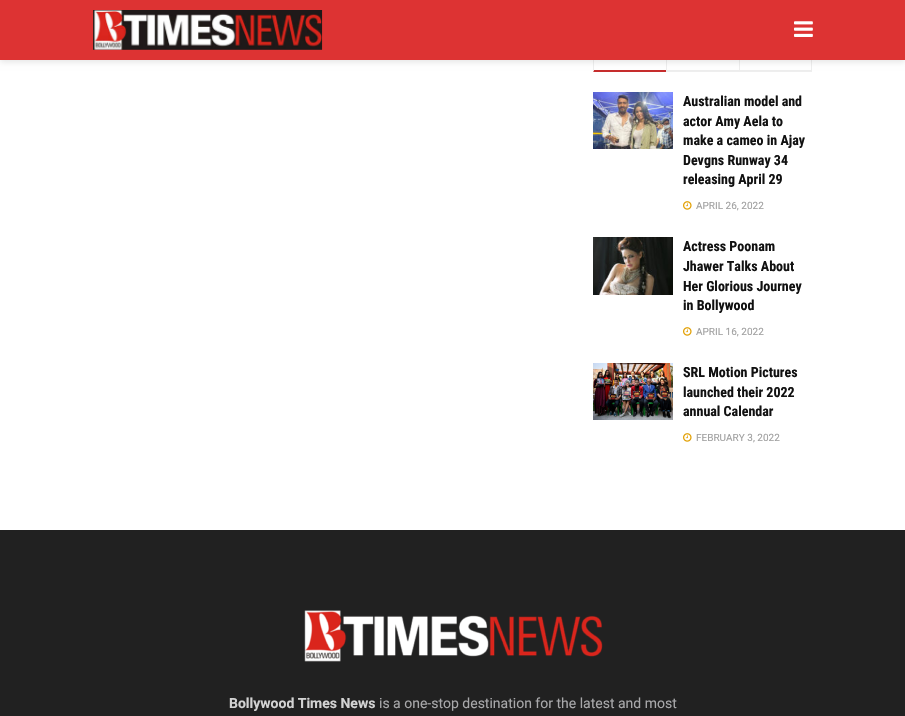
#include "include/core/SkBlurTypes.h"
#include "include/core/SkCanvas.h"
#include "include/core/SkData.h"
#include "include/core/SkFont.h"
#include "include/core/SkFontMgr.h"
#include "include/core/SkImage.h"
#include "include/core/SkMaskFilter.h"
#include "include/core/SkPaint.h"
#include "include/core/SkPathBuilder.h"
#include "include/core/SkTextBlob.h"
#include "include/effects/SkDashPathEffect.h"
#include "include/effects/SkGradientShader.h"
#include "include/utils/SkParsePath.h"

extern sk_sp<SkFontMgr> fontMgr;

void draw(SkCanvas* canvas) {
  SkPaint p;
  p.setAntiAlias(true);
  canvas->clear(SK_ColorWHITE);
  p.setColor(SkColorSetRGB(198, 45, 45));
  canvas->drawPath(SkPathBuilder().moveTo(666, 72).lineTo(593, 72).lineTo(594, 70).lineTo(666, 70).close().detach(), p);
  p.setColor(SkColorSetRGB(238, 238, 238));
  canvas->drawPath(SkPathBuilder().moveTo(593, 72).lineTo(593, 33).lineTo(594, 34).lineTo(594, 70).close().detach(), p);
  canvas->drawRect(SkRect::MakeLTRB(666, 70, 739, 72), p);
  canvas->drawRect(SkRect::MakeLTRB(666, 60, 667, 72), p);
  canvas->drawRect(SkRect::MakeLTRB(811, 60, 812, 72), p);
  canvas->drawRect(SkRect::MakeLTRB(739, 70, 812, 72), p);
  canvas->drawRect(SkRect::MakeLTRB(739, 60, 740, 72), p);
  p.setColor(SkColorSetARGB(26, 0, 0, 0));
  p.setMaskFilter(SkMaskFilter::MakeBlur(kNormal_SkBlurStyle, 3));
  canvas->drawRect(SkRect::MakeLTRB(0, 2, 905, 62), p);
  p.setMaskFilter(nullptr);
  p.setColor(SkColorSetRGB(221, 51, 51));
  canvas->drawRect(SkRect::MakeLTRB(0, 0, 905, 60), p);
  canvas->drawImageRect(SkImages::DeferredFromEncodedData(SkData::MakeFromFileName("images/1.png")), SkRect::MakeLTRB(93, 10, 323, 50), SkSamplingOptions());
  canvas->drawImageRect(SkImages::DeferredFromEncodedData(SkData::MakeFromFileName("images/2.png")), SkRect::MakeLTRB(794, 21, 813, 37), SkSamplingOptions());
  canvas->drawImageRect(SkImages::DeferredFromEncodedData(SkData::MakeFromFileName("images/3.png")), SkRect::MakeLTRB(593, 92, 673, 149), SkSamplingOptions());
  canvas->drawImageRect(SkImages::DeferredFromEncodedData(SkData::MakeFromFileName("images/4.png")), SkRect::MakeLTRB(683, 201, 692, 210), SkSamplingOptions());
  canvas->drawImageRect(SkImages::DeferredFromEncodedData(SkData::MakeFromFileName("images/5.png")), SkRect::MakeLTRB(593, 237, 673, 295), SkSamplingOptions());
  canvas->drawImageRect(SkImages::DeferredFromEncodedData(SkData::MakeFromFileName("images/4.png")), SkRect::MakeLTRB(683, 327, 692, 336), SkSamplingOptions());
  canvas->drawImageRect(SkImages::DeferredFromEncodedData(SkData::MakeFromFileName("images/6.png")), SkRect::MakeLTRB(593, 363, 673, 420), SkSamplingOptions());
  canvas->drawImageRect(SkImages::DeferredFromEncodedData(SkData::MakeFromFileName("images/4.png")), SkRect::MakeLTRB(683, 433, 692, 442), SkSamplingOptions());
  p.setColor(SkColorSetRGB(33, 33, 33));
  canvas->drawRect(SkRect::MakeLTRB(0, 530, 905, 716), p);
  canvas->drawImageRect(SkImages::DeferredFromEncodedData(SkData::MakeFromFileName("images/7.png")), SkRect::MakeLTRB(304, 610, 603, 662), SkSamplingOptions());
  SkFont font1(fontMgr->matchFamilyStyle("Roboto Condensed", SkFontStyle::Bold()), 14);
  font1.setSubpixel(true);
  p.setColor(SkColorSetRGB(17, 17, 17));
  canvas->drawString("Australian model and", 683, 106, font1, p);
  canvas->drawString("actor Amy Aela to", 683, 126, font1, p);
  canvas->drawString("make a cameo in Ajay", 683, 145, font1, p);
  canvas->drawString("Devgns Runway 34", 683, 165, font1, p);
  canvas->drawString("releasing April 29", 683, 184, font1, p);
  SkFont font2(fontMgr->matchFamilyStyle("Roboto", SkFontStyle::Normal()), 10);
  font2.setSubpixel(true);
  p.setColor(SkColorSetRGB(160, 160, 160));
  canvas->drawString("APRIL 26, 2022", 696, 209, font2, p);
  p.setColor(SkColorSetRGB(17, 17, 17));
  canvas->drawString("Actress Poonam", 683, 251, font1, p);
  canvas->drawString("Jhawer Talks About", 683, 271, font1, p);
  canvas->drawString("Her Glorious Journey", 683, 291, font1, p);
  canvas->drawString("in Bollywood", 683, 310, font1, p);
  p.setColor(SkColorSetRGB(160, 160, 160));
  canvas->drawString("APRIL 16, 2022", 696, 335, font2, p);
  p.setColor(SkColorSetRGB(17, 17, 17));
  canvas->drawString("SRL Motion Pictures", 683, 377, font1, p);
  canvas->drawString("launched their 2022", 683, 397, font1, p);
  canvas->drawString("annual Calendar", 683, 416, font1, p);
  p.setColor(SkColorSetRGB(160, 160, 160));
  canvas->drawString("FEBRUARY 3, 2022", 696, 441, font2, p);
  SkFont font3(fontMgr->matchFamilyStyle("Roboto", SkFontStyle::Bold()), 14);
  font3.setSubpixel(true);
  p.setColor(SkColorSetRGB(211, 211, 211));
  canvas->drawString("Bollywood Times News", 229, 708, font3, p);
  SkFont font4(fontMgr->matchFamilyStyle("Roboto", SkFontStyle::Normal()), 14);
  font4.setSubpixel(true);
  p.setColor(SkColorSetRGB(168, 168, 170));
  canvas->drawString("is a one-stop destination for the latest and most", 379, 708, font4, p);
}
